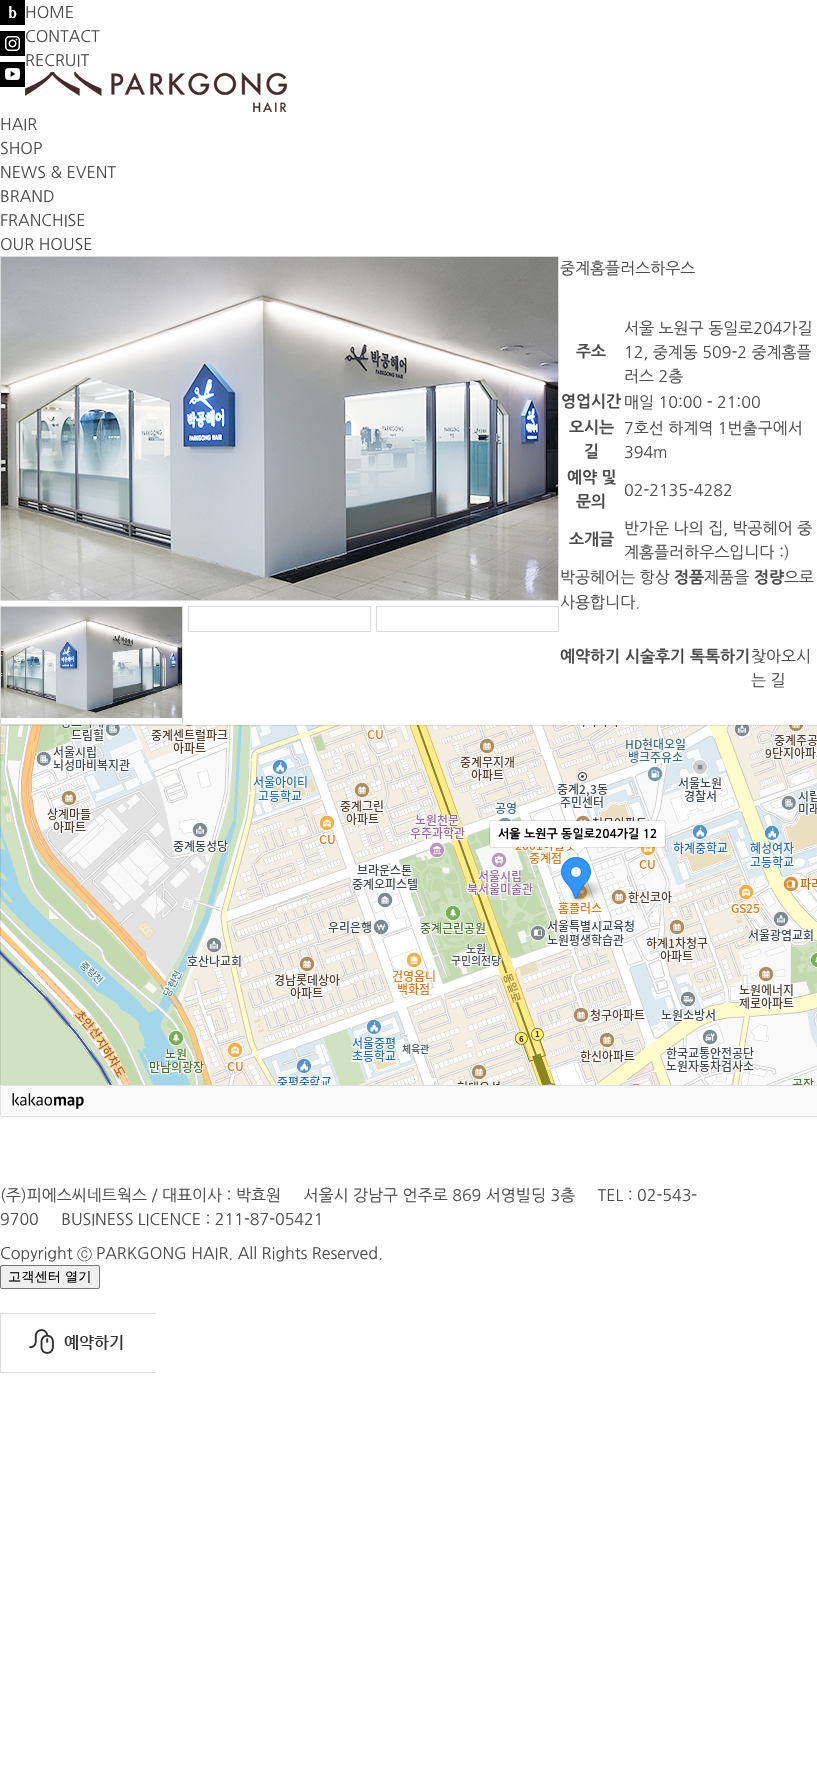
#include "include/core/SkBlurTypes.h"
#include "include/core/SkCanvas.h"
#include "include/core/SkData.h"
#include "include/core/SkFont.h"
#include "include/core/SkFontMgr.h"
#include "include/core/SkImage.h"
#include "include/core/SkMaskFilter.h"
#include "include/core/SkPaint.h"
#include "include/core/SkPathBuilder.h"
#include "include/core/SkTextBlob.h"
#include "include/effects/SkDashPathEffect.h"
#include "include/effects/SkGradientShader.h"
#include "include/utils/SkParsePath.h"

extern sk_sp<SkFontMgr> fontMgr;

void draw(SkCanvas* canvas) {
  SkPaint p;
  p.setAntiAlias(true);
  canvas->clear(SK_ColorWHITE);
  canvas->drawImageRect(SkImages::DeferredFromEncodedData(SkData::MakeFromFileName("images/1.png")), SkRect::MakeLTRB(0, 0, 25, 25), SkSamplingOptions());
  canvas->drawImageRect(SkImages::DeferredFromEncodedData(SkData::MakeFromFileName("images/2.png")), SkRect::MakeLTRB(0, 31, 25, 56), SkSamplingOptions());
  canvas->drawImageRect(SkImages::DeferredFromEncodedData(SkData::MakeFromFileName("images/3.png")), SkRect::MakeLTRB(0, 62, 25, 87), SkSamplingOptions());
  canvas->drawImageRect(SkImages::DeferredFromEncodedData(SkData::MakeFromFileName("images/4.png")), SkRect::MakeLTRB(25, 72, 287, 112), SkSamplingOptions());
  p.setStyle(SkPaint::kStroke_Style);
  p.setStrokeWidth(1);
  p.setColor(SkColorSetRGB(218, 218, 218));
  canvas->drawRect(SkRect::MakeLTRB(0.5f, 256.5f, 558.5f, 600.5f), p);
  canvas->drawImageRect(SkImages::DeferredFromEncodedData(SkData::MakeFromFileName("images/5.png")), SkRect::MakeLTRB(1, 257, 558, 600), SkSamplingOptions());
  canvas->drawRect(SkRect::MakeLTRB(0.5f, 606.5f, 182.5f, 724.5f), p);
  canvas->drawImageRect(SkImages::DeferredFromEncodedData(SkData::MakeFromFileName("images/6.png")), SkRect::MakeLTRB(1, 607, 182, 718), SkSamplingOptions());
  canvas->drawRect(SkRect::MakeLTRB(188.5f, 606.5f, 370.5f, 631.5f), p);
  canvas->drawRect(SkRect::MakeLTRB(376.5f, 606.5f, 558.5f, 631.5f), p);
  canvas->drawImageRect(SkImages::DeferredFromEncodedData(SkData::MakeFromFileName("images/7.png")), SkRect::MakeLTRB(0, 725, 53, 823), SkSamplingOptions());
  canvas->drawImageRect(SkImages::DeferredFromEncodedData(SkData::MakeFromFileName("images/8.png")), SkRect::MakeLTRB(53, 725, 309, 823), SkSamplingOptions());
  canvas->drawImageRect(SkImages::DeferredFromEncodedData(SkData::MakeFromFileName("images/9.png")), SkRect::MakeLTRB(309, 725, 565, 823), SkSamplingOptions());
  canvas->drawImageRect(SkImages::DeferredFromEncodedData(SkData::MakeFromFileName("images/10.png")), SkRect::MakeLTRB(565, 725, 817, 823), SkSamplingOptions());
  p.setStyle(SkPaint::kFill_Style);
  p.setColor(SkColorSetARGB(26, 0, 0, 0));
  canvas->drawRect(SkRect::MakeLTRB(1, 725, 817, 726), p);
  p.setColor(SkColorSetRGB(216, 209, 187));
  canvas->drawRect(SkRect::MakeLTRB(0, 726, 1, 727), p);
  canvas->drawImageRect(SkImages::DeferredFromEncodedData(SkData::MakeFromFileName("images/11.png")), SkRect::MakeLTRB(0, 823, 53, 1079), SkSamplingOptions());
  p.setColor(SkColorSetRGB(208, 226, 194));
  canvas->drawRect(SkRect::MakeLTRB(0, 1079, 53, 1085), p);
  p.setColor(SkColorSetARGB(26, 0, 0, 0));
  canvas->drawRect(SkRect::MakeLTRB(0, 727, 1, 1085), p);
  canvas->drawImageRect(SkImages::DeferredFromEncodedData(SkData::MakeFromFileName("images/12.png")), SkRect::MakeLTRB(53, 823, 309, 1079), SkSamplingOptions());
  canvas->drawImageRect(SkImages::DeferredFromEncodedData(SkData::MakeFromFileName("images/13.png")), SkRect::MakeLTRB(309, 823, 565, 1079), SkSamplingOptions());
  canvas->drawImageRect(SkImages::DeferredFromEncodedData(SkData::MakeFromFileName("images/14.png")), SkRect::MakeLTRB(565, 823, 817, 1079), SkSamplingOptions());
  canvas->drawImageRect(SkImages::DeferredFromEncodedData(SkData::MakeFromFileName("images/15.png")), SkRect::MakeLTRB(53, 1079, 309, 1085), SkSamplingOptions());
  canvas->drawImageRect(SkImages::DeferredFromEncodedData(SkData::MakeFromFileName("images/16.png")), SkRect::MakeLTRB(309, 1079, 565, 1085), SkSamplingOptions());
  canvas->drawImageRect(SkImages::DeferredFromEncodedData(SkData::MakeFromFileName("images/17.png")), SkRect::MakeLTRB(565, 1079, 817, 1085), SkSamplingOptions());
  p.setStyle(SkPaint::kStroke_Style);
  canvas->drawRoundRect(SkRect::MakeLTRB(489.5f, 820.5f, 665.5f, 847.5f), 2.5f, 2.5f, p);
  p.setStyle(SkPaint::kFill_Style);
  p.setColor(SK_ColorWHITE);
  canvas->drawRoundRect(SkRect::MakeLTRB(490, 821, 665, 847), 3, 3, p);
  canvas->drawImageRect(SkImages::DeferredFromEncodedData(SkData::MakeFromFileName("images/18.png")), SkRect::MakeLTRB(570, 847, 585, 855), SkSamplingOptions());
  canvas->drawImageRect(SkImages::DeferredFromEncodedData(SkData::MakeFromFileName("images/19.png")), SkRect::MakeLTRB(561, 857, 603, 903), SkSamplingOptions());
  p.setColor(SkColorSetRGB(249, 249, 249));
  canvas->drawPath(SkPathBuilder().moveTo(0.5f, 1085.5f).lineTo(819.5f, 1085.5f).lineTo(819.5f, 1115).cubicTo(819.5f, 1116, 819, 1116.5f, 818, 1116.5f).lineTo(2, 1116.5f).cubicTo(1, 1116.5f, 0.5f, 1116, 0.5f, 1115).close().detach(), p);
  p.setStyle(SkPaint::kStroke_Style);
  p.setColor(SkColorSetRGB(224, 224, 224));
  canvas->drawPath(SkPathBuilder().moveTo(0.5f, 1085.5f).lineTo(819.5f, 1085.5f).lineTo(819.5f, 1115).cubicTo(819.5f, 1116, 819, 1116.5f, 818, 1116.5f).lineTo(2, 1116.5f).cubicTo(1, 1116.5f, 0.5f, 1116, 0.5f, 1115).close().detach(), p);
  canvas->drawImageRect(SkImages::DeferredFromEncodedData(SkData::MakeFromFileName("images/20.png")), SkRect::MakeLTRB(12, 1093, 84, 1109), SkSamplingOptions());
  p.setStyle(SkPaint::kFill_Style);
  p.setColor(SkColorSetRGB(239, 239, 239));
  canvas->drawRoundRect(SkRect::MakeLTRB(0.5f, 1265.5f, 99.5f, 1288.5f), 1.5f, 1.5f, p);
  p.setStyle(SkPaint::kStroke_Style);
  p.setColor(SkColorSetRGB(118, 118, 118));
  canvas->drawRoundRect(SkRect::MakeLTRB(0.5f, 1265.5f, 99.5f, 1288.5f), 1.5f, 1.5f, p);
  canvas->drawImageRect(SkImages::DeferredFromEncodedData(SkData::MakeFromFileName("images/21.png")), SkRect::MakeLTRB(0, 1313, 156, 1373), SkSamplingOptions());
  SkFont font1(fontMgr->matchFamilyStyle("NanumGothic", SkFontStyle::Normal()), 16);
  font1.setSubpixel(true);
  p.setStyle(SkPaint::kFill_Style);
  p.setColor(SkColorSetRGB(75, 75, 75));
  canvas->drawString("HOME", 25, 18, font1, p);
  canvas->drawString("CONTACT", 25, 42, font1, p);
  canvas->drawString("RECRUIT", 25, 66, font1, p);
  canvas->drawString("HAIR", 0, 130, font1, p);
  canvas->drawString("SHOP", 0, 154, font1, p);
  canvas->drawString("NEWS & EVENT", 0, 178, font1, p);
  canvas->drawString("BRAND", 0, 202, font1, p);
  canvas->drawString("FRANCHISE", 0, 226, font1, p);
  canvas->drawString("OUR HOUSE", 0, 250, font1, p);
  canvas->drawString("중계홈플러스하우스", 560, 274, font1, p);
  SkFont font2(fontMgr->matchFamilyStyle("NanumGothic", SkFontStyle::Bold()), 16);
  font2.setSubpixel(true);
  canvas->drawString("주소", 576, 357, font2, p);
  canvas->drawString("서울 노원구 동일로204가길", 624, 334, font1, p);
  canvas->drawString("12, 중계동 509-2 중계홈플", 624, 358, font1, p);
  canvas->drawString("러스 2층", 624, 382, font1, p);
  canvas->drawString("영업시간", 561, 407, font2, p);
  canvas->drawString("매일 10:00 - 21:00", 624, 408, font1, p);
  canvas->drawString("오시는", 569, 433, font2, p);
  canvas->drawString("길", 584, 457, font2, p);
  canvas->drawString("7호선 하계역 1번출구에서", 624, 434, font1, p);
  canvas->drawString("394m", 624, 458, font1, p);
  canvas->drawString("예약 및", 567, 483, font2, p);
  canvas->drawString("문의", 576, 507, font2, p);
  canvas->drawString("02-2135-4282", 624, 496, font1, p);
  canvas->drawString("소개글", 569, 545, font2, p);
  canvas->drawString("반가운 나의 집, 박공헤어 중", 624, 534, font1, p);
  canvas->drawString("계홈플러하우스입니다 :)", 624, 558, font1, p);
  canvas->drawString("박공헤어는 항상", 560, 583, font1, p);
  canvas->drawString("정품", 674, 583, font2, p);
  canvas->drawString("제품을", 704, 583, font1, p);
  canvas->drawString("정량", 754, 583, font2, p);
  canvas->drawString("으로", 784, 583, font1, p);
  canvas->drawString("사용합니다.", 560, 608, font1, p);
  canvas->drawString("예약하기", 560, 662, font2, p);
  canvas->drawString("시술후기", 625, 662, font2, p);
  canvas->drawString("톡톡하기", 690, 662, font2, p);
  canvas->drawString("찾아오시", 751, 662, font1, p);
  canvas->drawString("는 길", 751, 686, font1, p);
  SkFont font3(fontMgr->matchFamilyStyle("NanumGothic", SkFontStyle::Bold()), 12);
  font3.setSubpixel(true);
  p.setColor(SK_ColorBLACK);
  canvas->drawString("서울 노원구 동일로204가길 12", 498, 838, font3, p);
  p.setColor(SkColorSetRGB(75, 75, 75));
  canvas->drawString("(주)피에스씨네트웍스 / 대표이사 : 박효원     서울시 강남구 언주로 869 서영빌딩 3층     TEL : 02-543-", 0, 1201, font1, p);
  canvas->drawString("9700     BUSINESS LICENCE : 211-87-05421", 0, 1225, font1, p);
  canvas->drawString("Copyright", 0, 1259, font1, p);
  SkFont font4(fontMgr->matchFamilyStyle("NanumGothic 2", SkFontStyle::Normal()), 16);
  font4.setSubpixel(true);
  canvas->drawString("ⓒ", 77, 1259, font4, p);
  canvas->drawString("PARKGONG HAIR. All Rights Reserved.", 96, 1259, font1, p);
  SkFont font5(fontMgr->matchFamilyStyle("WenQuanYi Zen Hei", SkFontStyle(500, SkFontStyle::kNormal_Width, SkFontStyle::kUpright_Slant)), 13.25f);
  font5.setSubpixel(true);
  p.setColor(SK_ColorBLACK);
  canvas->drawString("고객센터 열기", 8, 1281, font5, p);
}
